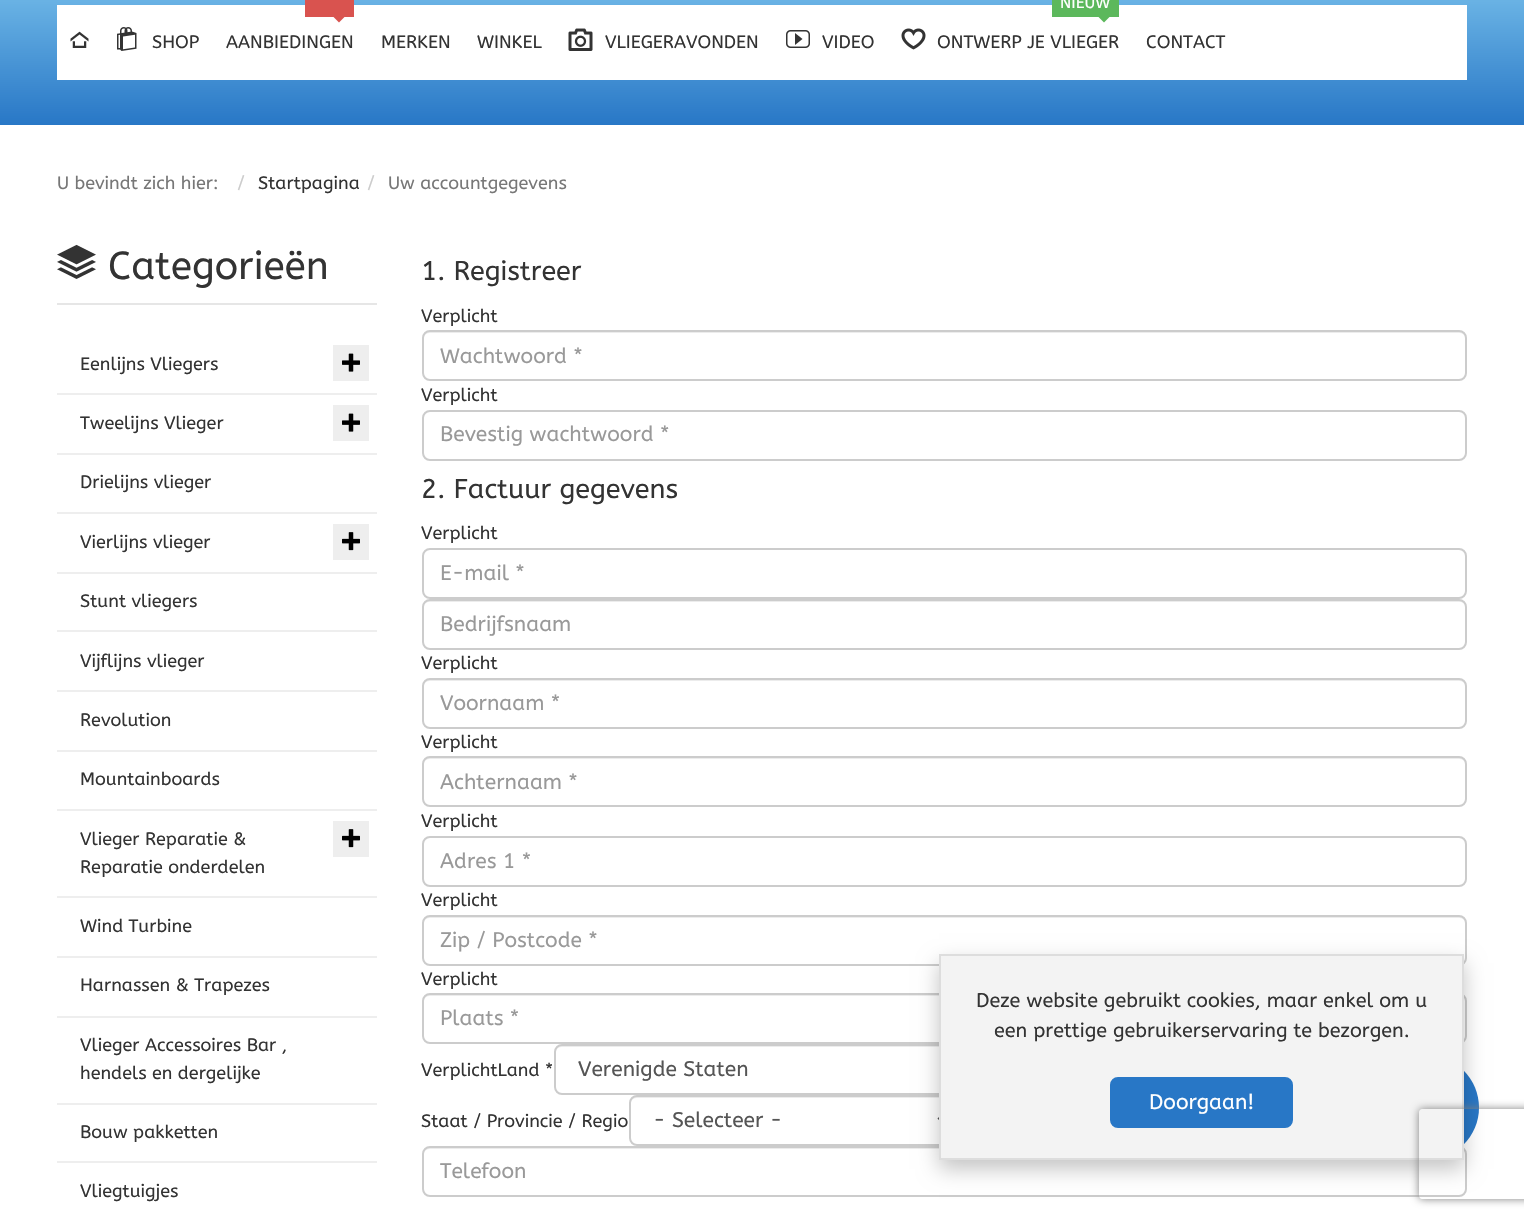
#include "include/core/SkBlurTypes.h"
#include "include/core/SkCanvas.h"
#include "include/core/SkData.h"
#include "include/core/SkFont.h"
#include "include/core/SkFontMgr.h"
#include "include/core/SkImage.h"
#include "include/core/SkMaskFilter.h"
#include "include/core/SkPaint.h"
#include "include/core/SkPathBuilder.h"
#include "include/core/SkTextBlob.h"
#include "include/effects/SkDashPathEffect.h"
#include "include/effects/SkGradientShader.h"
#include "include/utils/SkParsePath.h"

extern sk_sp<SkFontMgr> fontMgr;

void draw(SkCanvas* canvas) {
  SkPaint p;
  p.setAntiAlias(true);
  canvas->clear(SK_ColorWHITE);
  {
    const SkColor colors[] = {SK_ColorWHITE, SkColorSetRGB(141, 211, 245), SkColorSetRGB(40, 119, 198)};
    const float stops[] = {0, 0.4f, 1};
    const SkPoint ends[] = {{762, -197}, {762, 125}};
    p.setShader(SkGradientShader::MakeLinear(ends, colors, stops, 3, SkTileMode::kClamp));
    p.setAlpha(255);
  }
  canvas->drawRect(SkRect::MakeLTRB(0, 0, 1524, 125), p);
  p.setShader(nullptr);
  p.setColor(SK_ColorWHITE);
  canvas->drawRect(SkRect::MakeLTRB(57, 5, 1467, 80), p);
  canvas->drawImageRect(SkImages::DeferredFromEncodedData(SkData::MakeFromFileName("images/1.png")), SkRect::MakeLTRB(70, 31, 89, 48), SkSamplingOptions());
  canvas->drawImageRect(SkImages::DeferredFromEncodedData(SkData::MakeFromFileName("images/2.png")), SkRect::MakeLTRB(117, 27, 137, 51), SkSamplingOptions());
  p.setColor(SkColorSetRGB(217, 83, 79));
  canvas->drawRect(SkRect::MakeLTRB(305, 0, 354, 17), p);
  canvas->drawPath(SkPathBuilder().moveTo(333, 16.5f).lineTo(345, 16.5f).lineTo(339, 22.5f).close().detach(), p);
  canvas->drawImageRect(SkImages::DeferredFromEncodedData(SkData::MakeFromFileName("images/3.png")), SkRect::MakeLTRB(568, 28, 593, 51), SkSamplingOptions());
  canvas->drawImageRect(SkImages::DeferredFromEncodedData(SkData::MakeFromFileName("images/4.png")), SkRect::MakeLTRB(786, 30, 810, 48), SkSamplingOptions());
  p.setColor(SkColorSetRGB(92, 184, 92));
  canvas->drawRect(SkRect::MakeLTRB(1052, 0, 1119, 17), p);
  canvas->drawPath(SkPathBuilder().moveTo(1098, 16.5f).lineTo(1110, 16.5f).lineTo(1104, 22.5f).close().detach(), p);
  canvas->drawImageRect(SkImages::DeferredFromEncodedData(SkData::MakeFromFileName("images/5.png")), SkRect::MakeLTRB(901, 28, 926, 50), SkSamplingOptions());
  p.setColor(SkColorSetRGB(230, 230, 230));
  canvas->drawRect(SkRect::MakeLTRB(57, 303, 377, 305), p);
  canvas->drawImageRect(SkImages::DeferredFromEncodedData(SkData::MakeFromFileName("images/6.png")), SkRect::MakeLTRB(57, 244, 96, 279), SkSamplingOptions());
  p.setColor(SkColorSetRGB(238, 238, 238));
  canvas->drawRect(SkRect::MakeLTRB(57, 393, 377, 395), p);
  canvas->drawRect(SkRect::MakeLTRB(333, 345, 369, 381), p);
  canvas->drawImageRect(SkImages::DeferredFromEncodedData(SkData::MakeFromFileName("images/7.png")), SkRect::MakeLTRB(342, 353, 360, 372), SkSamplingOptions());
  canvas->drawRect(SkRect::MakeLTRB(57, 453, 377, 455), p);
  canvas->drawRect(SkRect::MakeLTRB(333, 405, 369, 441), p);
  canvas->drawImageRect(SkImages::DeferredFromEncodedData(SkData::MakeFromFileName("images/7.png")), SkRect::MakeLTRB(342, 413, 360, 432), SkSamplingOptions());
  canvas->drawRect(SkRect::MakeLTRB(57, 512, 377, 514), p);
  canvas->drawRect(SkRect::MakeLTRB(57, 572, 377, 574), p);
  canvas->drawRect(SkRect::MakeLTRB(333, 524, 369, 560), p);
  canvas->drawImageRect(SkImages::DeferredFromEncodedData(SkData::MakeFromFileName("images/8.png")), SkRect::MakeLTRB(342, 532, 360, 551), SkSamplingOptions());
  canvas->drawRect(SkRect::MakeLTRB(57, 630, 377, 632), p);
  canvas->drawRect(SkRect::MakeLTRB(57, 690, 377, 692), p);
  canvas->drawRect(SkRect::MakeLTRB(57, 750, 377, 752), p);
  canvas->drawRect(SkRect::MakeLTRB(57, 809, 377, 811), p);
  canvas->drawRect(SkRect::MakeLTRB(57, 896, 377, 898), p);
  canvas->drawRect(SkRect::MakeLTRB(333, 821, 369, 857), p);
  canvas->drawImageRect(SkImages::DeferredFromEncodedData(SkData::MakeFromFileName("images/8.png")), SkRect::MakeLTRB(342, 829, 360, 848), SkSamplingOptions());
  canvas->drawRect(SkRect::MakeLTRB(57, 956, 377, 958), p);
  canvas->drawRect(SkRect::MakeLTRB(57, 1016, 377, 1018), p);
  canvas->drawRect(SkRect::MakeLTRB(57, 1103, 377, 1105), p);
  canvas->drawRect(SkRect::MakeLTRB(57, 1161, 377, 1163), p);
  p.setColor(SkColorSetRGB(236, 236, 236));
  canvas->drawPath(SkPathBuilder().moveTo(429, 333).lineTo(1460, 333).cubicTo(1463, 333, 1466, 336, 1466, 339).cubicTo(1466, 335, 1464, 332, 1460, 332).lineTo(429, 332).cubicTo(425, 332, 423, 335, 423, 339).cubicTo(423, 336, 426, 333, 429, 333).close().detach(), p);
  p.setStyle(SkPaint::kStroke_Style);
  p.setStrokeWidth(2);
  p.setColor(SkColorSetRGB(204, 204, 204));
  canvas->drawRoundRect(SkRect::MakeLTRB(423, 331, 1466, 380), 7, 7, p);
  canvas->drawRoundRect(SkRect::MakeLTRB(423, 411, 1466, 460), 7, 7, p);
  canvas->drawRoundRect(SkRect::MakeLTRB(423, 549, 1466, 598), 7, 7, p);
  p.setStyle(SkPaint::kFill_Style);
  p.setColor(SkColorSetRGB(236, 236, 236));
  canvas->drawPath(SkPathBuilder().moveTo(429, 602).lineTo(1460, 602).cubicTo(1463, 602, 1466, 604, 1466, 608).lineTo(1466, 606).cubicTo(1466, 603, 1463, 600, 1460, 600).lineTo(429, 600).cubicTo(426, 600, 423, 603, 423, 606).lineTo(423, 608).cubicTo(423, 604, 426, 602, 429, 602).close().detach(), p);
  p.setStyle(SkPaint::kStroke_Style);
  p.setColor(SkColorSetRGB(204, 204, 204));
  canvas->drawRoundRect(SkRect::MakeLTRB(423, 600, 1466, 649), 7, 7, p);
  p.setStyle(SkPaint::kFill_Style);
  p.setColor(SkColorSetRGB(236, 236, 236));
  canvas->drawPath(SkPathBuilder().moveTo(429, 681).lineTo(1460, 681).cubicTo(1463, 681, 1466, 684, 1466, 687).cubicTo(1466, 683, 1464, 680, 1460, 680).lineTo(429, 680).cubicTo(425, 680, 423, 683, 423, 687).cubicTo(423, 684, 426, 681, 429, 681).close().detach(), p);
  p.setStyle(SkPaint::kStroke_Style);
  p.setColor(SkColorSetRGB(204, 204, 204));
  canvas->drawRoundRect(SkRect::MakeLTRB(423, 679, 1466, 728), 7, 7, p);
  p.setStyle(SkPaint::kFill_Style);
  p.setColor(SkColorSetRGB(236, 236, 236));
  canvas->drawPath(SkPathBuilder().moveTo(429, 759).lineTo(1460, 759).cubicTo(1463, 759, 1466, 762, 1466, 765).cubicTo(1466, 761, 1464, 758, 1460, 758).lineTo(429, 758).cubicTo(425, 758, 423, 761, 423, 765).cubicTo(423, 762, 426, 759, 429, 759).close().detach(), p);
  p.setStyle(SkPaint::kStroke_Style);
  p.setColor(SkColorSetRGB(204, 204, 204));
  canvas->drawRoundRect(SkRect::MakeLTRB(423, 757, 1466, 806), 7, 7, p);
  canvas->drawRoundRect(SkRect::MakeLTRB(423, 837, 1466, 886), 7, 7, p);
  p.setStyle(SkPaint::kFill_Style);
  p.setColor(SkColorSetRGB(236, 236, 236));
  canvas->drawPath(SkPathBuilder().moveTo(429, 918).lineTo(1460, 918).cubicTo(1463, 918, 1466, 921, 1466, 924).cubicTo(1466, 920, 1464, 917, 1460, 917).lineTo(429, 917).cubicTo(425, 917, 423, 920, 423, 924).cubicTo(423, 921, 426, 918, 429, 918).close().detach(), p);
  p.setStyle(SkPaint::kStroke_Style);
  p.setColor(SkColorSetRGB(204, 204, 204));
  canvas->drawRoundRect(SkRect::MakeLTRB(423, 916, 1466, 965), 7, 7, p);
  p.setStyle(SkPaint::kFill_Style);
  p.setColor(SkColorSetRGB(236, 236, 236));
  canvas->drawPath(SkPathBuilder().moveTo(429, 996).lineTo(1460, 996).cubicTo(1463, 996, 1466, 999, 1466, 1002).cubicTo(1466, 998, 1464, 995, 1460, 995).lineTo(429, 995).cubicTo(425, 995, 423, 998, 423, 1002).cubicTo(423, 999, 426, 996, 429, 996).close().detach(), p);
  p.setStyle(SkPaint::kStroke_Style);
  p.setColor(SkColorSetRGB(204, 204, 204));
  canvas->drawRoundRect(SkRect::MakeLTRB(423, 994, 1466, 1043), 7, 7, p);
  p.setStyle(SkPaint::kFill_Style);
  p.setColor(SkColorSetRGB(236, 236, 236));
  canvas->drawPath(SkPathBuilder().moveTo(561, 1047).lineTo(1122, 1047).cubicTo(1125, 1047, 1128, 1050, 1128, 1053).lineTo(1128, 1052).cubicTo(1128, 1049, 1125, 1046, 1122, 1046).lineTo(561, 1046).cubicTo(558, 1046, 555, 1049, 555, 1052).lineTo(555, 1053).cubicTo(555, 1050, 558, 1047, 561, 1047).close().detach(), p);
  p.setStyle(SkPaint::kStroke_Style);
  p.setColor(SkColorSetRGB(204, 204, 204));
  canvas->drawRoundRect(SkRect::MakeLTRB(555, 1045, 1129, 1094), 7, 7, p);
  p.setStyle(SkPaint::kFill_Style);
  p.setColor(SkColorSetRGB(236, 236, 236));
  canvas->drawPath(SkPathBuilder().moveTo(636, 1098).lineTo(951, 1098).cubicTo(954, 1098, 957, 1101, 957, 1104).lineTo(957, 1103).cubicTo(957, 1100, 954, 1097, 951, 1097).lineTo(636, 1097).cubicTo(633, 1097, 630, 1100, 630, 1103).lineTo(630, 1104).cubicTo(630, 1101, 633, 1098, 636, 1098).close().detach(), p);
  p.setStyle(SkPaint::kStroke_Style);
  p.setColor(SkColorSetRGB(204, 204, 204));
  canvas->drawRoundRect(SkRect::MakeLTRB(630, 1096, 958, 1145), 7, 7, p);
  p.setStrokeWidth(3);
  p.setColor(SkColorSetRGB(85, 85, 85));
  canvas->drawPath(SkPathBuilder().moveTo(938.5f, 1117.5f).lineTo(944.5f, 1123.5f).lineTo(950.5f, 1117.5f).detach(), p);
  p.setStyle(SkPaint::kFill_Style);
  p.setColor(SkColorSetRGB(236, 236, 236));
  canvas->drawPath(SkPathBuilder().moveTo(429, 1149).lineTo(1460, 1149).cubicTo(1463, 1149, 1466, 1152, 1466, 1155).cubicTo(1466, 1151, 1464, 1148, 1460, 1148).lineTo(429, 1148).cubicTo(425, 1148, 423, 1151, 423, 1155).cubicTo(423, 1152, 426, 1149, 429, 1149).close().detach(), p);
  p.setStyle(SkPaint::kStroke_Style);
  p.setStrokeWidth(2);
  p.setColor(SkColorSetRGB(204, 204, 204));
  canvas->drawRoundRect(SkRect::MakeLTRB(423, 1147, 1466, 1196), 7, 7, p);
  p.setStyle(SkPaint::kFill_Style);
  p.setColor(SkColorSetRGB(40, 119, 198));
  canvas->drawCircle(1426.5f, 1107.5f, 52.5f, p);
  p.setColor(SkColorSetARGB(59, 0, 0, 0));
  p.setMaskFilter(SkMaskFilter::MakeBlur(kNormal_SkBlurStyle, 10));
  canvas->drawRect(SkRect::MakeLTRB(939, 963, 1464, 1169), p);
  p.setMaskFilter(nullptr);
  p.setColor(SkColorSetRGB(243, 243, 243));
  canvas->drawRect(SkRect::MakeLTRB(940, 955, 1463, 1159), p);
  p.setStyle(SkPaint::kStroke_Style);
  p.setColor(SkColorSetRGB(221, 221, 221));
  canvas->drawRect(SkRect::MakeLTRB(940, 955, 1463, 1159), p);
  canvas->save();
  canvas->clipPath(SkPathBuilder(SkPathFillType::kEvenOdd).moveTo(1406, 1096).lineTo(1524, 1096).lineTo(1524, 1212).lineTo(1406, 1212).close().moveTo(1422, 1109).lineTo(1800, 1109).cubicTo(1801.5f, 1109, 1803, 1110.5f, 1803, 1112).lineTo(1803, 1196).cubicTo(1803, 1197.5f, 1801.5f, 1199, 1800, 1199).lineTo(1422, 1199).cubicTo(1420.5f, 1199, 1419, 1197.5f, 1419, 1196).lineTo(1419, 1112).cubicTo(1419, 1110.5f, 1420.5f, 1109, 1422, 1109).close().detach(), true);
  p.setStyle(SkPaint::kFill_Style);
  p.setColor(SkColorSetRGB(128, 128, 128));
  p.setMaskFilter(SkMaskFilter::MakeBlur(kNormal_SkBlurStyle, 4));
  canvas->drawRoundRect(SkRect::MakeLTRB(1419, 1109, 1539, 1199), 3, 3, p);
  p.setMaskFilter(nullptr);
  canvas->restore();
  p.setColor(SkColorSetRGB(40, 119, 198));
  canvas->drawRoundRect(SkRect::MakeLTRB(1111, 1078, 1292, 1127), 7, 7, p);
  p.setStyle(SkPaint::kStroke_Style);
  canvas->drawRoundRect(SkRect::MakeLTRB(1111, 1078, 1292, 1127), 7, 7, p);
  SkFont font1(fontMgr->matchFamilyStyle("ABeeZee", SkFontStyle::Normal()), 18);
  font1.setSubpixel(true);
  p.setStyle(SkPaint::kFill_Style);
  p.setColor(SkColorSetRGB(51, 51, 51));
  canvas->drawString("SHOP", 152, 48, font1, p);
  canvas->drawString("AANBIEDINGEN", 226, 48, font1, p);
  canvas->drawString("MERKEN", 381, 48, font1, p);
  canvas->drawString("WINKEL", 477, 48, font1, p);
  canvas->drawString("VLIEGERAVONDEN", 605, 48, font1, p);
  canvas->drawString("VIDEO", 822, 48, font1, p);
  SkFont font2(fontMgr->matchFamilyStyle("ABeeZee", SkFontStyle::Normal()), 16);
  font2.setSubpixel(true);
  p.setColor(SK_ColorWHITE);
  canvas->drawString("NIEUW", 1060, 8, font2, p);
  p.setColor(SkColorSetRGB(51, 51, 51));
  canvas->drawString("ONTWERP JE VLIEGER", 937, 48, font1, p);
  canvas->drawString("CONTACT", 1146, 48, font1, p);
  p.setColor(SkColorSetRGB(119, 119, 119));
  canvas->drawString("U bevindt zich hier:", 57, 189, font1, p);
  p.setColor(SkColorSetRGB(204, 204, 204));
  canvas->drawString("/", 237, 189, font1, p);
  p.setColor(SkColorSetRGB(51, 51, 51));
  canvas->drawString("Startpagina", 258, 189, font1, p);
  p.setColor(SkColorSetRGB(204, 204, 204));
  canvas->drawString("/", 367, 189, font1, p);
  p.setColor(SkColorSetRGB(119, 119, 119));
  canvas->drawString("Uw accountgegevens", 388, 189, font1, p);
  SkFont font3(fontMgr->matchFamilyStyle("ABeeZee", SkFontStyle::Normal()), 39);
  font3.setSubpixel(true);
  p.setColor(SkColorSetRGB(51, 51, 51));
  canvas->drawString("Categorieën", 108, 279, font3, p);
  canvas->drawString("Eenlijns Vliegers", 80, 370, font1, p);
  canvas->drawString("Tweelijns Vlieger", 80, 429, font1, p);
  canvas->drawString("Drielijns vlieger", 80, 488, font1, p);
  canvas->drawString("Vierlijns vlieger", 80, 548, font1, p);
  canvas->drawString("Stunt vliegers", 80, 607, font1, p);
  canvas->drawString("Vijflijns vlieger", 80, 667, font1, p);
  canvas->drawString("Revolution", 80, 726, font1, p);
  canvas->drawString("Mountainboards", 80, 785, font1, p);
  canvas->drawString("Vlieger Reparatie &", 80, 845, font1, p);
  canvas->drawString("Reparatie onderdelen", 80, 873, font1, p);
  canvas->drawString("Wind Turbine", 80, 932, font1, p);
  canvas->drawString("Harnassen & Trapezes", 80, 991, font1, p);
  canvas->drawString("Vlieger Accessoires Bar ,", 80, 1051, font1, p);
  canvas->drawString("hendels en dergelijke", 80, 1079, font1, p);
  canvas->drawString("Bouw pakketten", 80, 1138, font1, p);
  canvas->drawString("Vliegtuigjes", 80, 1197, font1, p);
  SkFont font4(fontMgr->matchFamilyStyle("ABeeZee", SkFontStyle::Normal()), 27);
  font4.setSubpixel(true);
  canvas->drawString("1. Registreer", 421, 280, font4, p);
  canvas->drawString("Verplicht", 421, 322, font1, p);
  SkFont font5(fontMgr->matchFamilyStyle("ABeeZee", SkFontStyle::Normal()), 21);
  font5.setSubpixel(true);
  p.setColor(SkColorSetRGB(153, 153, 153));
  canvas->drawString("Wachtwoord *", 440, 363, font5, p);
  p.setColor(SkColorSetRGB(51, 51, 51));
  canvas->drawString("Verplicht", 421, 401, font1, p);
  p.setColor(SkColorSetRGB(153, 153, 153));
  canvas->drawString("Bevestig wachtwoord *", 440, 441, font5, p);
  p.setColor(SkColorSetRGB(51, 51, 51));
  canvas->drawString("2. Factuur gegevens", 421, 498, font4, p);
  canvas->drawString("Verplicht", 421, 539, font1, p);
  p.setColor(SkColorSetRGB(153, 153, 153));
  canvas->drawString("E-mail *", 440, 580, font5, p);
  canvas->drawString("Bedrijfsnaam", 440, 631, font5, p);
  p.setColor(SkColorSetRGB(51, 51, 51));
  canvas->drawString("Verplicht", 421, 669, font1, p);
  p.setColor(SkColorSetRGB(153, 153, 153));
  canvas->drawString("Voornaam *", 440, 710, font5, p);
  p.setColor(SkColorSetRGB(51, 51, 51));
  canvas->drawString("Verplicht", 421, 748, font1, p);
  p.setColor(SkColorSetRGB(153, 153, 153));
  canvas->drawString("Achternaam *", 440, 789, font5, p);
  p.setColor(SkColorSetRGB(51, 51, 51));
  canvas->drawString("Verplicht", 421, 827, font1, p);
  p.setColor(SkColorSetRGB(153, 153, 153));
  canvas->drawString("Adres 1 *", 440, 868, font5, p);
  p.setColor(SkColorSetRGB(51, 51, 51));
  canvas->drawString("Verplicht", 421, 906, font1, p);
  p.setColor(SkColorSetRGB(153, 153, 153));
  canvas->drawString("Zip / Postcode *", 440, 947, font5, p);
  p.setColor(SkColorSetRGB(51, 51, 51));
  canvas->drawString("Verplicht", 421, 985, font1, p);
  p.setColor(SkColorSetRGB(153, 153, 153));
  canvas->drawString("Plaats *", 440, 1025, font5, p);
  p.setColor(SkColorSetRGB(51, 51, 51));
  canvas->drawString("VerplichtLand *", 421, 1076, font1, p);
  p.setColor(SkColorSetRGB(85, 85, 85));
  canvas->drawString("Verenigde Staten", 578, 1076, font5, p);
  p.setColor(SkColorSetRGB(51, 51, 51));
  canvas->drawString("Staat / Provincie / Regio", 421, 1127, font1, p);
  p.setColor(SkColorSetRGB(85, 85, 85));
  canvas->drawString("- Selecteer -", 653, 1127, font5, p);
  p.setColor(SkColorSetRGB(153, 153, 153));
  canvas->drawString("Telefoon", 440, 1178, font5, p);
  SkFont font6(fontMgr->matchFamilyStyle("ABeeZee", SkFontStyle::Normal()), 19.8f);
  font6.setSubpixel(true);
  p.setColor(SkColorSetRGB(51, 51, 51));
  canvas->drawString("Deze website gebruikt cookies, maar enkel om u", 976, 1007, font6, p);
  canvas->drawString("een prettige gebruikerservaring te bezorgen.", 994, 1037, font6, p);
  p.setColor(SK_ColorWHITE);
  canvas->drawString("Doorgaan!", 1149, 1109, font5, p);
}
